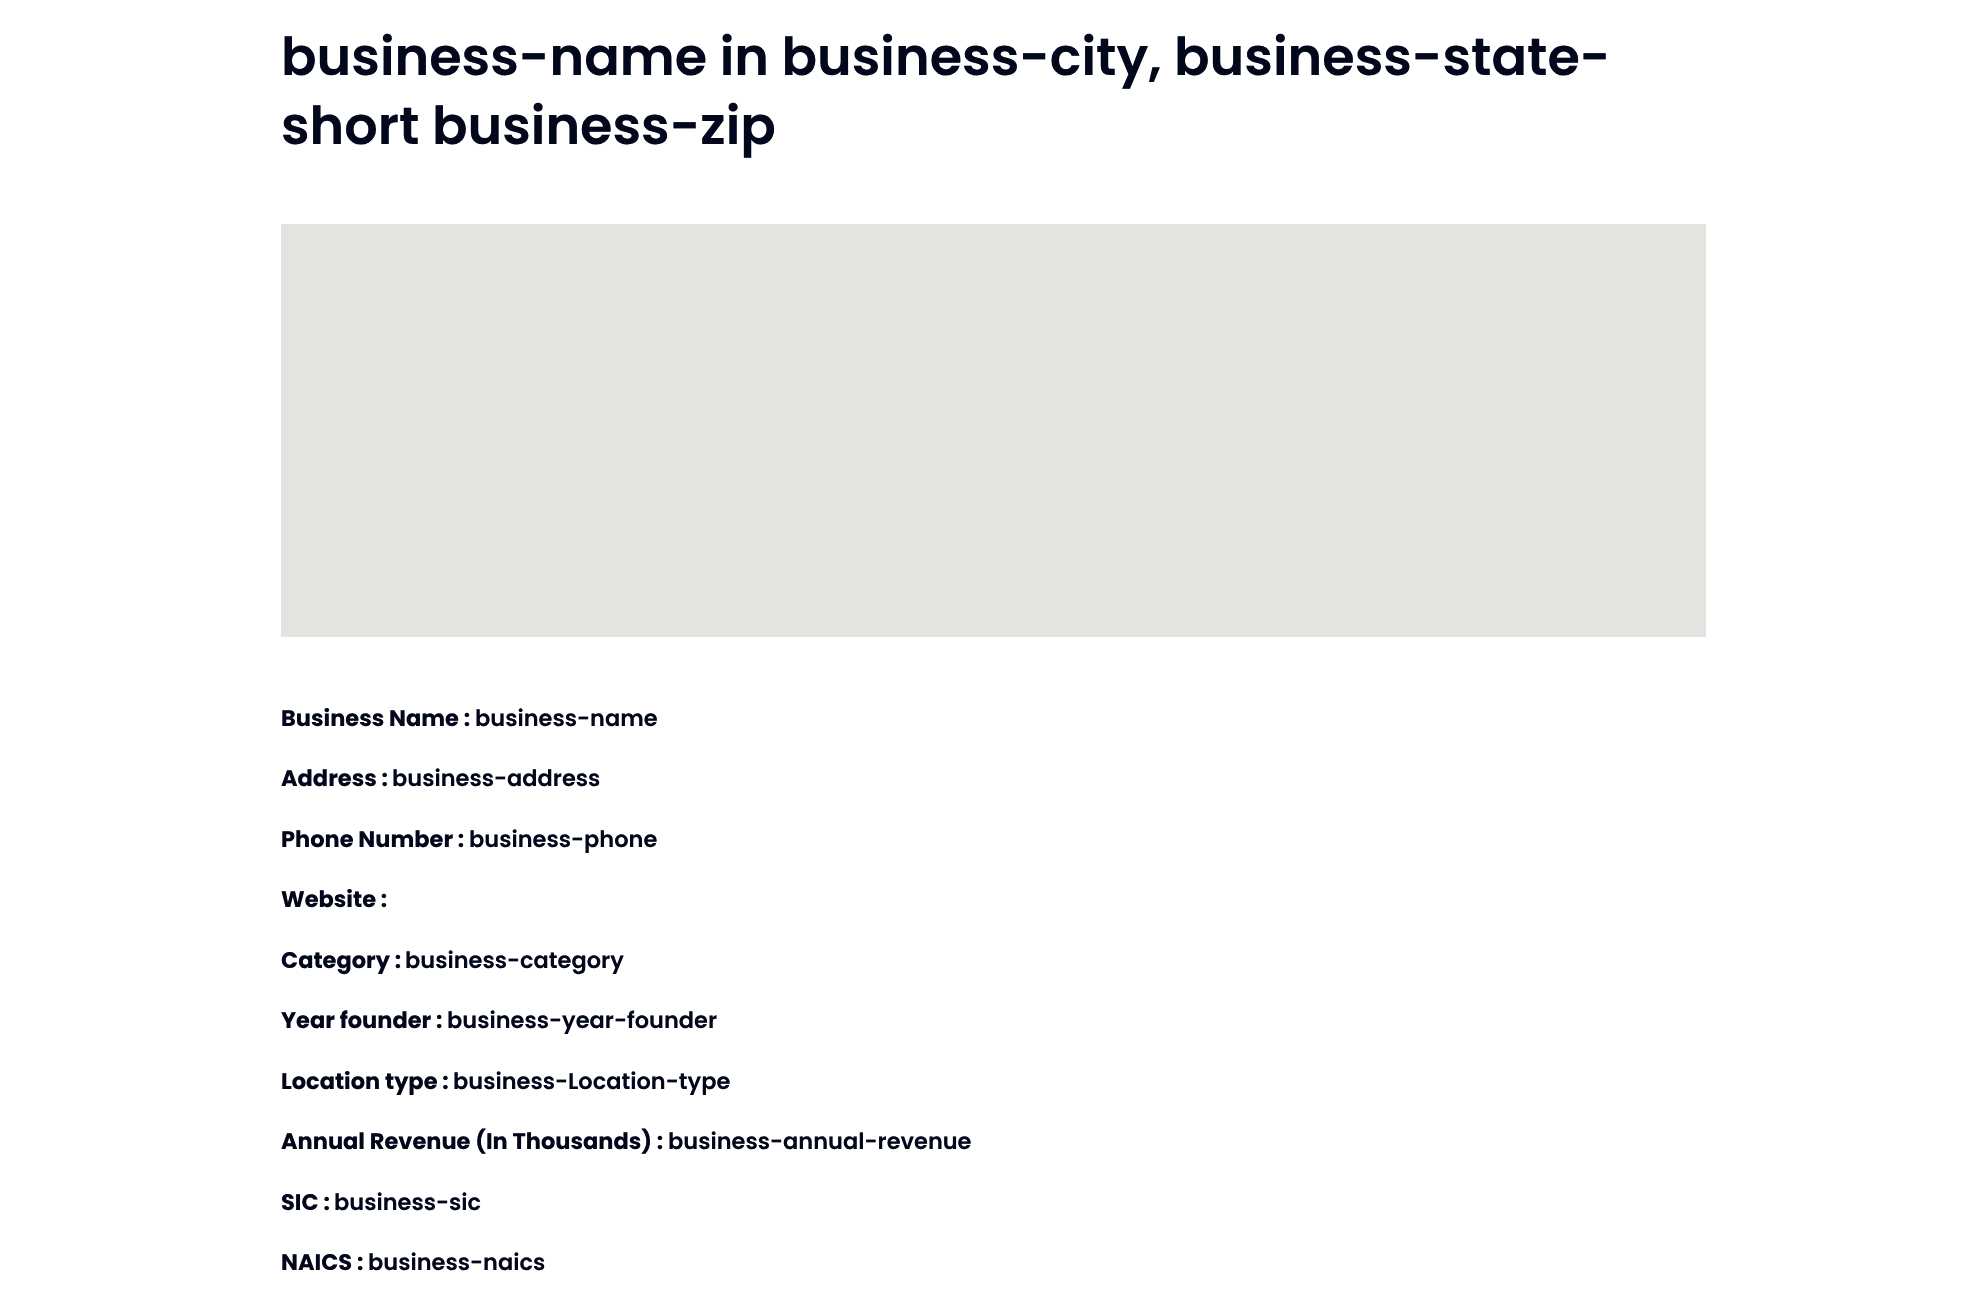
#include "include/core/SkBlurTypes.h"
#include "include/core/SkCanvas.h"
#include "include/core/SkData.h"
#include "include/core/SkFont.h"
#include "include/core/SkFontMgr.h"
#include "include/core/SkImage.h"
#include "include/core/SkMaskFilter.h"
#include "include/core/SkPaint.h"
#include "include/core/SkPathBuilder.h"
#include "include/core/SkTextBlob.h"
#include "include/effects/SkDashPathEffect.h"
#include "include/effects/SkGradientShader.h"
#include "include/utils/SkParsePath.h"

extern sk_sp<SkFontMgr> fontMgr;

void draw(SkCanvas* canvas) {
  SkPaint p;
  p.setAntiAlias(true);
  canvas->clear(SK_ColorWHITE);
  p.setColor(SkColorSetRGB(229, 227, 223));
  canvas->drawRect(SkRect::MakeLTRB(281, 224, 1706, 637), p);
  SkFont font1(fontMgr->matchFamilyStyle("Poppins", SkFontStyle(600, SkFontStyle::kNormal_Width, SkFontStyle::kUpright_Slant)), 52.5f);
  font1.setSubpixel(true);
  p.setColor(SkColorSetRGB(2, 7, 27));
  canvas->drawString("business-name in business-city, business-state-", 281, 75, font1, p);
  canvas->drawString("short business-zip", 281, 144, font1, p);
  SkFont font2(fontMgr->matchFamilyStyle("Poppins", SkFontStyle::Bold()), 22.5f);
  font2.setSubpixel(true);
  canvas->drawString("Business Name :", 281, 726, font2, p);
  SkFont font3(fontMgr->matchFamilyStyle("Poppins", SkFontStyle(600, SkFontStyle::kNormal_Width, SkFontStyle::kUpright_Slant)), 22.5f);
  font3.setSubpixel(true);
  canvas->drawString("business-name", 475, 726, font3, p);
  canvas->drawString("Address :", 281, 786, font2, p);
  canvas->drawString("business-address", 392, 786, font3, p);
  canvas->drawString("Phone Number :", 281, 847, font2, p);
  canvas->drawString("business-phone", 469, 847, font3, p);
  canvas->drawString("Website :", 281, 907, font2, p);
  canvas->drawString("Category :", 281, 968, font2, p);
  canvas->drawString("business-category", 405, 968, font3, p);
  canvas->drawString("Year founder :", 281, 1028, font2, p);
  canvas->drawString("business-year-founder", 447, 1028, font3, p);
  canvas->drawString("Location type :", 281, 1089, font2, p);
  canvas->drawString("business-Location-type", 453, 1089, font3, p);
  canvas->drawString("Annual Revenue (In Thousands) :", 281, 1149, font2, p);
  canvas->drawString("business-annual-revenue", 668, 1149, font3, p);
  canvas->drawString("SIC :", 281, 1210, font2, p);
  canvas->drawString("business-sic", 334, 1210, font3, p);
  canvas->drawString("NAICS :", 281, 1270, font2, p);
  canvas->drawString("business-naics", 368, 1270, font3, p);
}
